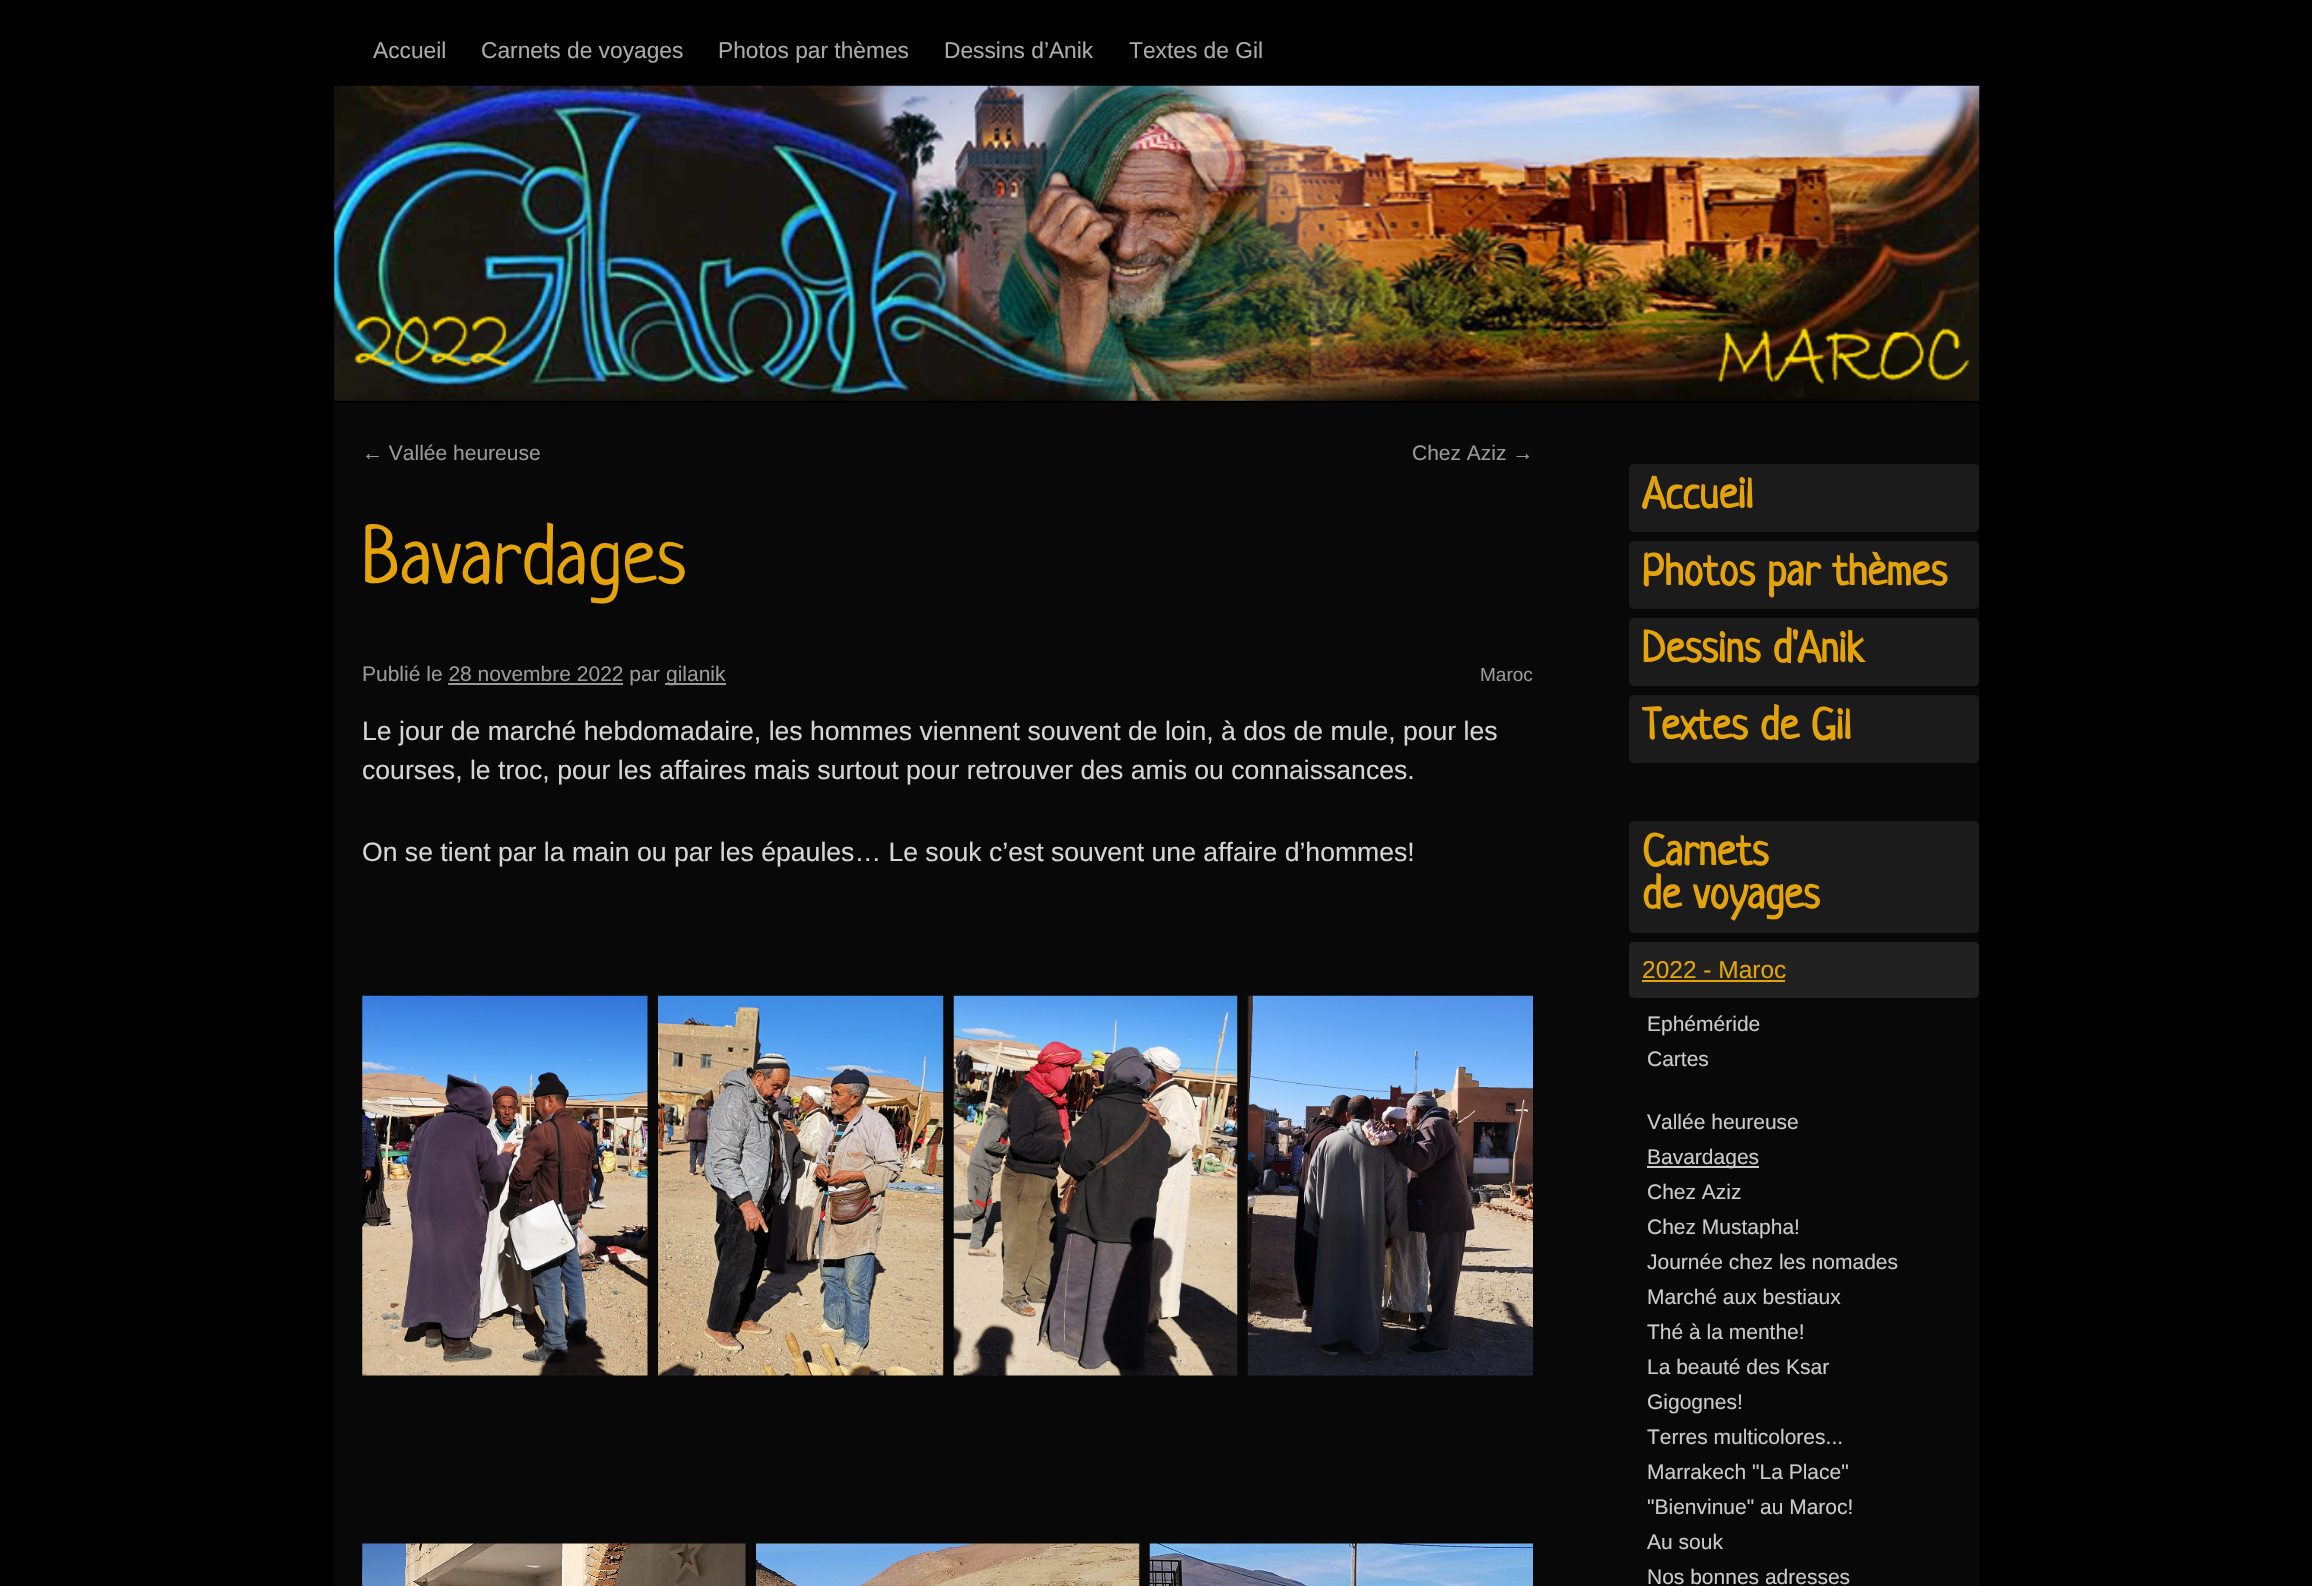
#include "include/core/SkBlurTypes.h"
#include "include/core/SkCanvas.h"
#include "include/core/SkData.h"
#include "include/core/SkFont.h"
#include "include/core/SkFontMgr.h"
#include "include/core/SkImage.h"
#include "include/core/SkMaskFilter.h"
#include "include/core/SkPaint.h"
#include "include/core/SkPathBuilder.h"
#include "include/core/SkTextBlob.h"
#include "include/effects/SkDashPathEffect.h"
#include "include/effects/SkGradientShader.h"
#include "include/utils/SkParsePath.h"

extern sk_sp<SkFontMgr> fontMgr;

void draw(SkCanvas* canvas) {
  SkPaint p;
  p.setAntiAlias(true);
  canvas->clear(SK_ColorBLACK);
  p.setColor(SkColorSetRGB(8, 8, 8));
  canvas->drawRect(SkRect::MakeLTRB(334, 86, 1979, 401), p);
  canvas->drawImageRect(SkImages::DeferredFromEncodedData(SkData::MakeFromFileName("images/1.png")), SkRect::MakeLTRB(334, 85, 1980, 401), SkSamplingOptions());
  p.setColor(SK_ColorBLACK);
  p.setMaskFilter(SkMaskFilter::MakeBlur(kNormal_SkBlurStyle, 17.5f));
  canvas->drawRect(SkRect::MakeLTRB(343, 411, 1971, 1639), p);
  p.setMaskFilter(nullptr);
  p.setColor(SkColorSetRGB(8, 8, 8));
  canvas->drawRect(SkRect::MakeLTRB(334, 403, 1979, 1586), p);
  p.setColor(SkColorSetRGB(153, 153, 153));
  canvas->drawRect(SkRect::MakeLTRB(665, 683, 726, 685), p);
  canvas->drawRect(SkRect::MakeLTRB(448, 683, 623, 685), p);
  canvas->drawImageRect(SkImages::DeferredFromEncodedData(SkData::MakeFromFileName("images/2.png")), SkRect::MakeLTRB(362, 995, 648, 1376), SkSamplingOptions());
  canvas->drawImageRect(SkImages::DeferredFromEncodedData(SkData::MakeFromFileName("images/3.png")), SkRect::MakeLTRB(658, 995, 944, 1376), SkSamplingOptions());
  canvas->drawImageRect(SkImages::DeferredFromEncodedData(SkData::MakeFromFileName("images/4.png")), SkRect::MakeLTRB(953, 995, 1238, 1376), SkSamplingOptions());
  canvas->drawImageRect(SkImages::DeferredFromEncodedData(SkData::MakeFromFileName("images/5.png")), SkRect::MakeLTRB(1247, 995, 1533, 1376), SkSamplingOptions());
  canvas->drawImageRect(SkImages::DeferredFromEncodedData(SkData::MakeFromFileName("images/6.png")), SkRect::MakeLTRB(362, 1543, 746, 1586), SkSamplingOptions());
  canvas->drawImageRect(SkImages::DeferredFromEncodedData(SkData::MakeFromFileName("images/7.png")), SkRect::MakeLTRB(756, 1543, 1140, 1586), SkSamplingOptions());
  canvas->drawImageRect(SkImages::DeferredFromEncodedData(SkData::MakeFromFileName("images/8.png")), SkRect::MakeLTRB(1149, 1543, 1533, 1586), SkSamplingOptions());
  p.setColor(SkColorSetRGB(27, 27, 27));
  canvas->drawRoundRect(SkRect::MakeLTRB(1629, 464, 1979, 532), 5, 5, p);
  canvas->drawRoundRect(SkRect::MakeLTRB(1629, 541, 1979, 609), 5, 5, p);
  canvas->drawRoundRect(SkRect::MakeLTRB(1629, 618, 1979, 686), 5, 5, p);
  canvas->drawRoundRect(SkRect::MakeLTRB(1629, 695, 1979, 763), 5, 5, p);
  canvas->drawRoundRect(SkRect::MakeLTRB(1629, 821, 1979, 933), 5, 5, p);
  p.setColor(SkColorSetRGB(33, 33, 33));
  canvas->drawRoundRect(SkRect::MakeLTRB(1629, 942, 1979, 998), 5, 5, p);
  p.setColor(SkColorSetRGB(228, 164, 9));
  canvas->drawRect(SkRect::MakeLTRB(1642, 980, 1785, 982), p);
  p.setColor(SkColorSetRGB(202, 202, 202));
  canvas->drawRect(SkRect::MakeLTRB(1647, 1166, 1759, 1168), p);
  SkFont font1(fontMgr->matchFamilyStyle("Liberation Sans", SkFontStyle::Normal()), 22.75f);
  font1.setSubpixel(true);
  p.setColor(SkColorSetRGB(170, 170, 170));
  canvas->drawString("Accueil", 373, 58, font1, p);
  canvas->drawString("Carnets de voyages", 481, 58, font1, p);
  canvas->drawString("Photos par thèmes", 718, 58, font1, p);
  canvas->drawString("Dessins d’Anik", 944, 58, font1, p);
  canvas->drawString("Textes de Gil", 1129, 58, font1, p);
  SkFont font2(fontMgr->matchFamilyStyle("Liberation Sans", SkFontStyle::Normal()), 21);
  font2.setSubpixel(true);
  p.setColor(SkColorSetRGB(153, 153, 153));
  canvas->drawString("← Vallée heureuse", 362, 460, font2, p);
  canvas->drawString("Chez Aziz →", 1412, 460, font2, p);
  SkFont font3(fontMgr->matchFamilyStyle("Neucha", SkFontStyle::Normal()), 78.75f);
  font3.setSubpixel(true);
  p.setColor(SkColorSetRGB(228, 164, 9));
  canvas->drawString("Bavardages", 362, 583, font3, p);
  p.setColor(SkColorSetRGB(153, 153, 153));
  canvas->drawString("Publié le 28 novembre 2022 par", 362, 681, font2, p);
  canvas->drawString("gilanik", 666, 681, font2, p);
  SkFont font4(fontMgr->matchFamilyStyle("Liberation Sans", SkFontStyle::Normal()), 19);
  font4.setSubpixel(true);
  canvas->drawString("Maroc", 1480, 681, font4, p);
  SkFont font5(fontMgr->matchFamilyStyle("Liberation Sans", SkFontStyle::Normal()), 26.6f);
  font5.setSubpixel(true);
  p.setColor(SkColorSetRGB(213, 213, 213));
  canvas->drawString("Le jour de marché hebdomadaire, les hommes viennent souvent de loin, à dos de mule, pour les", 362, 740, font5, p);
  canvas->drawString("courses, le troc, pour les affaires mais surtout pour retrouver des amis ou connaissances.", 362, 779, font5, p);
  canvas->drawString("On se tient par la main ou par les épaules… Le souk c’est souvent une affaire d’hommes!", 362, 861, font5, p);
  SkFont font6(fontMgr->matchFamilyStyle("Neucha", SkFontStyle::Bold()), 43.75f);
  font6.setSubpixel(true);
  p.setColor(SkColorSetRGB(228, 164, 9));
  canvas->drawString("Accueil", 1642, 508, font6, p);
  canvas->drawString("Photos par thèmes", 1642, 585, font6, p);
  canvas->drawString("Dessins d'Anik", 1642, 662, font6, p);
  canvas->drawString("Textes de Gil", 1642, 739, font6, p);
  canvas->drawString("Carnets", 1642, 865, font6, p);
  canvas->drawString("de voyages", 1642, 908, font6, p);
  SkFont font7(fontMgr->matchFamilyStyle("Liberation Sans", SkFontStyle::Normal()), 24.5f);
  font7.setSubpixel(true);
  canvas->drawString("2022 - Maroc", 1642, 978, font7, p);
  p.setColor(SkColorSetRGB(202, 202, 202));
  canvas->drawString("Ephéméride", 1647, 1031, font2, p);
  canvas->drawString("Cartes", 1647, 1066, font2, p);
  canvas->drawString("Vallée heureuse", 1647, 1129, font2, p);
  canvas->drawString("Bavardages", 1647, 1164, font2, p);
  canvas->drawString("Chez Aziz", 1647, 1199, font2, p);
  canvas->drawString("Chez Mustapha!", 1647, 1234, font2, p);
  canvas->drawString("Journée chez les nomades", 1647, 1269, font2, p);
  canvas->drawString("Marché aux bestiaux", 1647, 1304, font2, p);
  canvas->drawString("Thé à la menthe!", 1647, 1339, font2, p);
  canvas->drawString("La beauté des Ksar", 1647, 1374, font2, p);
  canvas->drawString("Gigognes!", 1647, 1409, font2, p);
  canvas->drawString("Terres multicolores...", 1647, 1444, font2, p);
  canvas->drawString("Marrakech \"La Place\"", 1647, 1479, font2, p);
  canvas->drawString("\"Bienvinue\" au Maroc!", 1647, 1514, font2, p);
  canvas->drawString("Au souk", 1647, 1549, font2, p);
  canvas->drawString("Nos bonnes adresses", 1647, 1584, font2, p);
}
